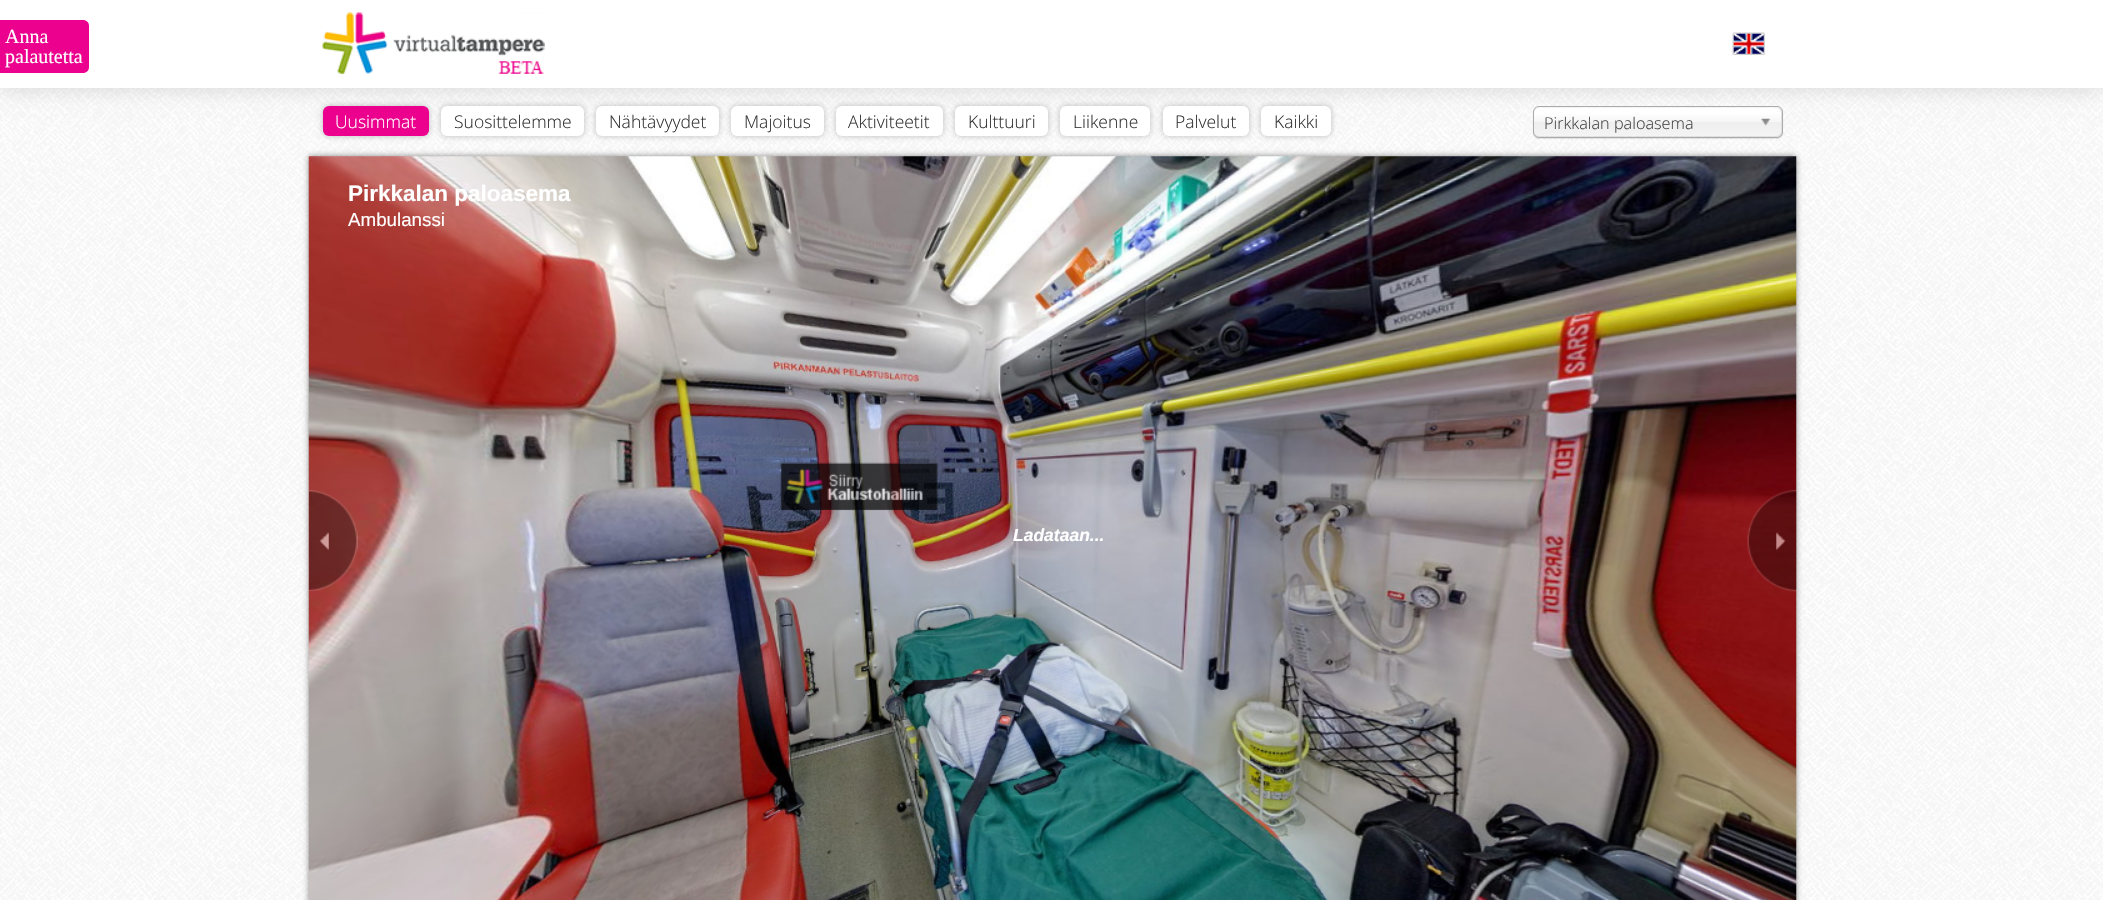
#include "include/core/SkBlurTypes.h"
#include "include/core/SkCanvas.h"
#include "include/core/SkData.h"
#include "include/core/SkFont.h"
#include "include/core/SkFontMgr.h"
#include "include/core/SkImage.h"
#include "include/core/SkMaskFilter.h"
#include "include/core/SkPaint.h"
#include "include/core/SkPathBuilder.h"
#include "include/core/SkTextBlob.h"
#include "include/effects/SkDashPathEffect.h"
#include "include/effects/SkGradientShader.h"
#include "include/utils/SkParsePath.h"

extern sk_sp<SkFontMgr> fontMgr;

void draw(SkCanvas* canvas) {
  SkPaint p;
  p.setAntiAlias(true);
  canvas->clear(SK_ColorWHITE);
  canvas->drawImageRect(SkImages::DeferredFromEncodedData(SkData::MakeFromFileName("images/1.png")), SkRect::MakeLTRB(0, 88, 2103, 900), SkSamplingOptions());
  p.setColor(SkColorSetARGB(38, 0, 0, 0));
  p.setMaskFilter(SkMaskFilter::MakeBlur(kNormal_SkBlurStyle, 10.5f));
  canvas->drawRect(SkRect::MakeLTRB(0, 0, 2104, 88), p);
  p.setMaskFilter(nullptr);
  p.setColor(SK_ColorWHITE);
  canvas->drawRect(SkRect::MakeLTRB(0, 0, 2103, 88), p);
  canvas->drawImageRect(SkImages::DeferredFromEncodedData(SkData::MakeFromFileName("images/2.png")), SkRect::MakeLTRB(322, 12, 545, 75), SkSamplingOptions());
  canvas->drawImageRect(SkImages::DeferredFromEncodedData(SkData::MakeFromFileName("images/3.png")), SkRect::MakeLTRB(1732, 32, 1765, 55), SkSamplingOptions());
  p.setColor(SkColorSetRGB(236, 0, 142));
  canvas->drawPath(SkPathBuilder().moveTo(-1, 20).lineTo(83, 20).cubicTo(86.5f, 20, 89, 22.5f, 89, 26).lineTo(89, 67).cubicTo(89, 70.5f, 86.5f, 73, 83, 73).lineTo(-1, 73).close().detach(), p);
  p.setColor(SkColorSetARGB(64, 0, 0, 0));
  p.setMaskFilter(SkMaskFilter::MakeBlur(kNormal_SkBlurStyle, 3));
  canvas->drawRoundRect(SkRect::MakeLTRB(323, 106, 429, 136), 6, 6, p);
  p.setMaskFilter(nullptr);
  p.setColor(SkColorSetRGB(236, 0, 142));
  canvas->drawRoundRect(SkRect::MakeLTRB(323, 106, 429, 136), 6, 6, p);
  p.setColor(SkColorSetARGB(64, 0, 0, 0));
  p.setMaskFilter(SkMaskFilter::MakeBlur(kNormal_SkBlurStyle, 3));
  canvas->drawRoundRect(SkRect::MakeLTRB(441, 106, 584, 136), 6, 6, p);
  p.setMaskFilter(nullptr);
  p.setColor(SK_ColorWHITE);
  canvas->drawRoundRect(SkRect::MakeLTRB(441, 106, 584, 136), 6, 6, p);
  p.setColor(SkColorSetARGB(64, 0, 0, 0));
  p.setMaskFilter(SkMaskFilter::MakeBlur(kNormal_SkBlurStyle, 3));
  canvas->drawRoundRect(SkRect::MakeLTRB(596, 106, 719, 136), 6, 6, p);
  p.setMaskFilter(nullptr);
  p.setColor(SK_ColorWHITE);
  canvas->drawRoundRect(SkRect::MakeLTRB(596, 106, 719, 136), 6, 6, p);
  p.setColor(SkColorSetARGB(64, 0, 0, 0));
  p.setMaskFilter(SkMaskFilter::MakeBlur(kNormal_SkBlurStyle, 3));
  canvas->drawRoundRect(SkRect::MakeLTRB(731, 106, 824, 136), 6, 6, p);
  p.setMaskFilter(nullptr);
  p.setColor(SK_ColorWHITE);
  canvas->drawRoundRect(SkRect::MakeLTRB(731, 106, 824, 136), 6, 6, p);
  p.setColor(SkColorSetARGB(64, 0, 0, 0));
  p.setMaskFilter(SkMaskFilter::MakeBlur(kNormal_SkBlurStyle, 3));
  canvas->drawRoundRect(SkRect::MakeLTRB(836, 106, 943, 136), 6, 6, p);
  p.setMaskFilter(nullptr);
  p.setColor(SK_ColorWHITE);
  canvas->drawRoundRect(SkRect::MakeLTRB(836, 106, 943, 136), 6, 6, p);
  p.setColor(SkColorSetARGB(64, 0, 0, 0));
  p.setMaskFilter(SkMaskFilter::MakeBlur(kNormal_SkBlurStyle, 3));
  canvas->drawRoundRect(SkRect::MakeLTRB(955, 106, 1048, 136), 6, 6, p);
  p.setMaskFilter(nullptr);
  p.setColor(SK_ColorWHITE);
  canvas->drawRoundRect(SkRect::MakeLTRB(955, 106, 1048, 136), 6, 6, p);
  p.setColor(SkColorSetARGB(64, 0, 0, 0));
  p.setMaskFilter(SkMaskFilter::MakeBlur(kNormal_SkBlurStyle, 3));
  canvas->drawRoundRect(SkRect::MakeLTRB(1060, 106, 1150, 136), 6, 6, p);
  p.setMaskFilter(nullptr);
  p.setColor(SK_ColorWHITE);
  canvas->drawRoundRect(SkRect::MakeLTRB(1060, 106, 1150, 136), 6, 6, p);
  p.setColor(SkColorSetARGB(64, 0, 0, 0));
  p.setMaskFilter(SkMaskFilter::MakeBlur(kNormal_SkBlurStyle, 3));
  canvas->drawRoundRect(SkRect::MakeLTRB(1163, 106, 1249, 136), 6, 6, p);
  p.setMaskFilter(nullptr);
  p.setColor(SK_ColorWHITE);
  canvas->drawRoundRect(SkRect::MakeLTRB(1163, 106, 1249, 136), 6, 6, p);
  p.setColor(SkColorSetARGB(64, 0, 0, 0));
  p.setMaskFilter(SkMaskFilter::MakeBlur(kNormal_SkBlurStyle, 3));
  canvas->drawRoundRect(SkRect::MakeLTRB(1261, 106, 1331, 136), 6, 6, p);
  p.setMaskFilter(nullptr);
  p.setColor(SK_ColorWHITE);
  canvas->drawRoundRect(SkRect::MakeLTRB(1261, 106, 1331, 136), 6, 6, p);
  p.setColor(SkColorSetARGB(26, 0, 0, 0));
  p.setMaskFilter(SkMaskFilter::MakeBlur(kNormal_SkBlurStyle, 0.5f));
  canvas->drawRoundRect(SkRect::MakeLTRB(1533, 108, 1783, 139), 6, 6, p);
  p.setMaskFilter(nullptr);
  {
    const SkColor colors[] = {SK_ColorWHITE, SkColorSetRGB(246, 246, 246), SkColorSetRGB(238, 238, 238), SkColorSetRGB(244, 244, 244)};
    const float stops[] = {0.2f, 0.5f, 0.52f, 1};
    const SkPoint ends[] = {{1658, 107}, {1658, 136}};
    p.setShader(SkGradientShader::MakeLinear(ends, colors, stops, 4, SkTileMode::kClamp));
    p.setAlpha(255);
  }
  canvas->drawRoundRect(SkRect::MakeLTRB(1534, 108, 1781, 136), 5, 5, p);
  p.setStyle(SkPaint::kStroke_Style);
  p.setStrokeWidth(1);
  p.setShader(nullptr);
  p.setColor(SkColorSetRGB(170, 170, 170));
  canvas->drawRoundRect(SkRect::MakeLTRB(1533.5f, 106.5f, 1782.5f, 137.5f), 5.5f, 5.5f, p);
  canvas->drawImageRect(SkImages::DeferredFromEncodedData(SkData::MakeFromFileName("images/4.png")), SkRect::MakeLTRB(1761, 118, 1771, 126), SkSamplingOptions());
  p.setStyle(SkPaint::kFill_Style);
  p.setColor(SkColorSetARGB(115, 0, 0, 0));
  p.setMaskFilter(SkMaskFilter::MakeBlur(kNormal_SkBlurStyle, 3));
  canvas->drawRect(SkRect::MakeLTRB(309, 156, 1796, 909), p);
  p.setMaskFilter(nullptr);
  canvas->drawImageRect(SkImages::DeferredFromEncodedData(SkData::MakeFromFileName("images/5.png")), SkRect::MakeLTRB(308, 156, 1797, 900), SkSamplingOptions());
  canvas->drawImageRect(SkImages::DeferredFromEncodedData(SkData::MakeFromFileName("images/6.png")), SkRect::MakeLTRB(309, 490, 358, 591), SkSamplingOptions());
  canvas->drawImageRect(SkImages::DeferredFromEncodedData(SkData::MakeFromFileName("images/7.png")), SkRect::MakeLTRB(1747, 490, 1797, 592), SkSamplingOptions());
  SkFont font1(fontMgr->matchFamilyStyle("Liberation Serif", SkFontStyle::Normal()), 20);
  font1.setSubpixel(true);
  p.setColor(SK_ColorWHITE);
  canvas->drawString("Anna", 5, 43, font1, p);
  canvas->drawString("palautetta", 5, 63, font1, p);
  SkFont font2(fontMgr->matchFamilyStyle("Open Sans", SkFontStyle(300, SkFontStyle::kNormal_Width, SkFontStyle::kUpright_Slant)), 17.5f);
  font2.setSubpixel(true);
  canvas->drawString("Uusimmat", 335, 128, font2, p);
  p.setColor(SkColorSetRGB(51, 51, 51));
  canvas->drawString("Suosittelemme", 454, 128, font2, p);
  canvas->drawString("Nähtävyydet", 609, 128, font2, p);
  canvas->drawString("Majoitus", 744, 128, font2, p);
  canvas->drawString("Aktiviteetit", 848, 128, font2, p);
  canvas->drawString("Kulttuuri", 968, 128, font2, p);
  canvas->drawString("Liikenne", 1073, 128, font2, p);
  canvas->drawString("Palvelut", 1175, 128, font2, p);
  canvas->drawString("Kaikki", 1274, 128, font2, p);
  SkFont font3(fontMgr->matchFamilyStyle("Open Sans", SkFontStyle(300, SkFontStyle::kNormal_Width, SkFontStyle::kUpright_Slant)), 16.25f);
  font3.setSubpixel(true);
  p.setColor(SkColorSetRGB(68, 68, 68));
  canvas->drawString("Pirkkalan paloasema", 1544, 129, font3, p);
  SkFont font4(fontMgr->matchFamilyStyle("Liberation Sans", SkFontStyle::Bold()), 22.5f);
  font4.setSubpixel(true);
  p.setColor(SK_ColorWHITE);
  canvas->drawString("Pirkkalan paloasema", 348, 201, font4, p);
  SkFont font5(fontMgr->matchFamilyStyle("Liberation Sans", SkFontStyle::Normal()), 18.75f);
  font5.setSubpixel(true);
  canvas->drawString("Ambulanssi", 348, 226, font5, p);
  SkFont font6(fontMgr->matchFamilyStyle("Liberation Sans", SkFontStyle::BoldItalic()), 17.5f);
  font6.setSubpixel(true);
  canvas->drawString("Ladataan...", 1013, 541, font6, p);
}
